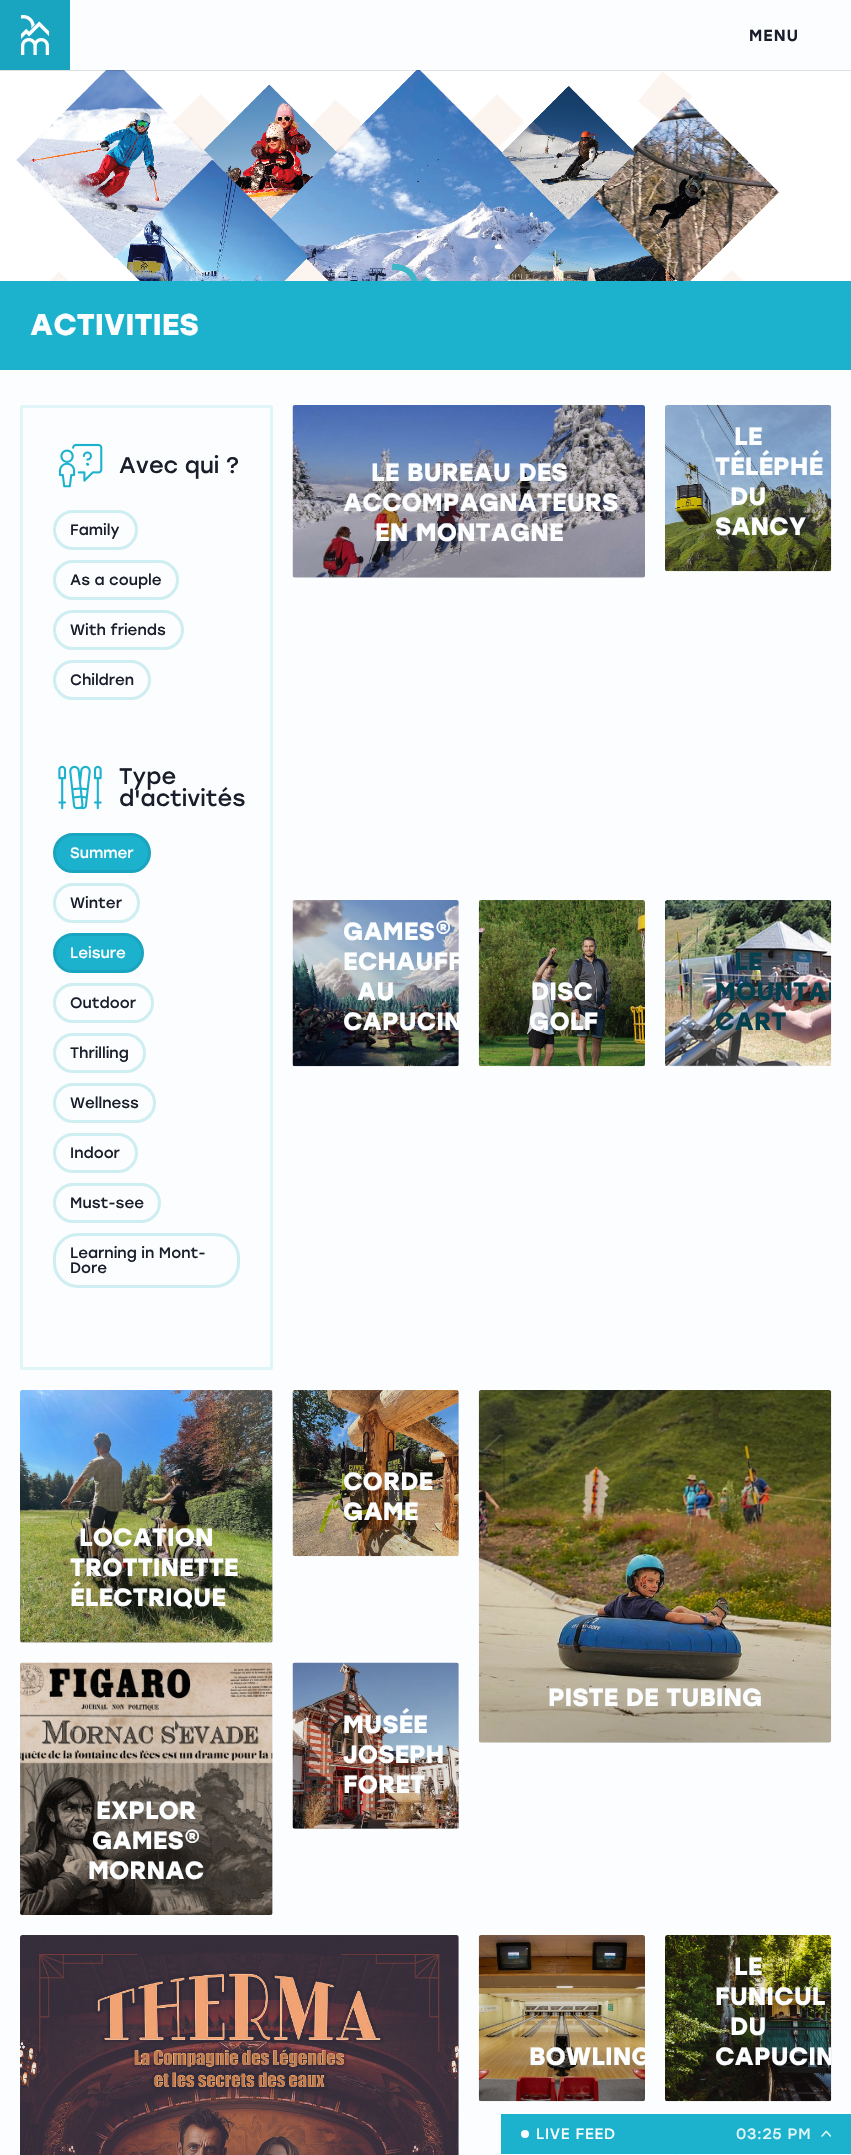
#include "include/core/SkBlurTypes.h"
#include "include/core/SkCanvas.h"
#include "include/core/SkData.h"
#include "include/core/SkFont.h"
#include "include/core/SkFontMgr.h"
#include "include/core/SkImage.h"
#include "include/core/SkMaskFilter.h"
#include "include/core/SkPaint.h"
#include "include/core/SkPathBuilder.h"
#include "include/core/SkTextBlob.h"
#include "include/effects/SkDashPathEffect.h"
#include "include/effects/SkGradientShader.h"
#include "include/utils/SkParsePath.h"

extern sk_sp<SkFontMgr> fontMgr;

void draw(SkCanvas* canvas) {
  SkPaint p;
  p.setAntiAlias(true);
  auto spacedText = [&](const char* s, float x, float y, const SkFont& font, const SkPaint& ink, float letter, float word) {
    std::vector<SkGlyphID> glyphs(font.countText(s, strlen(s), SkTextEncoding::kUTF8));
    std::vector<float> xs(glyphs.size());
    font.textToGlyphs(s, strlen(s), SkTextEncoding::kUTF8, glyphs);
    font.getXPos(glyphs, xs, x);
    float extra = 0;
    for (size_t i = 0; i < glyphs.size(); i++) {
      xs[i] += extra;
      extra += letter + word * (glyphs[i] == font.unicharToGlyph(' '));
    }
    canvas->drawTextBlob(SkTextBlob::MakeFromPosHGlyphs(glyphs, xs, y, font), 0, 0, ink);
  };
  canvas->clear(SkColorSetRGB(251, 253, 254));
  canvas->drawImageRect(SkImages::DeferredFromEncodedData(SkData::MakeFromFileName("images/2.png")), SkRect::MakeLTRB(0, 70, 851, 281), SkSamplingOptions());
  p.setColor(SkColorSetARGB(31, 0, 0, 0));
  canvas->drawRect(SkRect::MakeLTRB(0, 70, 851, 71), p);
  p.setColor(SkColorSetRGB(25, 164, 192));
  canvas->drawRect(SkRect::MakeLTRB(0, 0, 70, 70), p);
  canvas->drawImageRect(SkImages::DeferredFromEncodedData(SkData::MakeFromFileName("images/1.png")), SkRect::MakeLTRB(20, 15, 50, 55), SkSamplingOptions());
  p.setColor(SkColorSetRGB(28, 177, 205));
  canvas->drawRect(SkRect::MakeLTRB(0, 281, 851, 370), p);
  p.setStyle(SkPaint::kStroke_Style);
  p.setStrokeWidth(3);
  p.setColor(SkColorSetRGB(223, 245, 248));
  canvas->drawRoundRect(SkRect::MakeLTRB(21.5f, 406.5f, 271.5f, 1368.5f), 1, 1, p);
  canvas->drawImageRect(SkImages::DeferredFromEncodedData(SkData::MakeFromFileName("images/3.png")), SkRect::MakeLTRB(58, 443, 103, 488), SkSamplingOptions());
  p.setColor(SkColorSetRGB(206, 238, 242));
  canvas->drawRoundRect(SkRect::MakeLTRB(54.5f, 511.5f, 136.5f, 548.5f), 18.5f, 18.5f, p);
  canvas->drawRoundRect(SkRect::MakeLTRB(54.5f, 561.5f, 177.5f, 598.5f), 18.5f, 18.5f, p);
  canvas->drawRoundRect(SkRect::MakeLTRB(54.5f, 611.5f, 182.5f, 648.5f), 18.5f, 18.5f, p);
  canvas->drawRoundRect(SkRect::MakeLTRB(54.5f, 661.5f, 149.5f, 698.5f), 18.5f, 18.5f, p);
  canvas->drawImageRect(SkImages::DeferredFromEncodedData(SkData::MakeFromFileName("images/4.png")), SkRect::MakeLTRB(58, 765, 102, 810), SkSamplingOptions());
  p.setStyle(SkPaint::kFill_Style);
  p.setColor(SkColorSetRGB(28, 177, 205));
  canvas->drawRoundRect(SkRect::MakeLTRB(54.5f, 834.5f, 149.5f, 871.5f), 18.5f, 18.5f, p);
  p.setStyle(SkPaint::kStroke_Style);
  p.setColor(SkColorSetRGB(25, 164, 192));
  canvas->drawRoundRect(SkRect::MakeLTRB(54.5f, 834.5f, 149.5f, 871.5f), 18.5f, 18.5f, p);
  p.setColor(SkColorSetRGB(206, 238, 242));
  canvas->drawRoundRect(SkRect::MakeLTRB(54.5f, 884.5f, 138.5f, 921.5f), 18.5f, 18.5f, p);
  p.setStyle(SkPaint::kFill_Style);
  p.setColor(SkColorSetRGB(28, 177, 205));
  canvas->drawRoundRect(SkRect::MakeLTRB(54.5f, 934.5f, 142.5f, 971.5f), 18.5f, 18.5f, p);
  p.setStyle(SkPaint::kStroke_Style);
  p.setColor(SkColorSetRGB(25, 164, 192));
  canvas->drawRoundRect(SkRect::MakeLTRB(54.5f, 934.5f, 142.5f, 971.5f), 18.5f, 18.5f, p);
  p.setColor(SkColorSetRGB(206, 238, 242));
  canvas->drawRoundRect(SkRect::MakeLTRB(54.5f, 984.5f, 152.5f, 1021.5f), 18.5f, 18.5f, p);
  canvas->drawRoundRect(SkRect::MakeLTRB(54.5f, 1034.5f, 144.5f, 1071.5f), 18.5f, 18.5f, p);
  canvas->drawRoundRect(SkRect::MakeLTRB(54.5f, 1084.5f, 154.5f, 1121.5f), 18.5f, 18.5f, p);
  canvas->drawRoundRect(SkRect::MakeLTRB(54.5f, 1134.5f, 136.5f, 1171.5f), 18.5f, 18.5f, p);
  canvas->drawRoundRect(SkRect::MakeLTRB(54.5f, 1184.5f, 159.5f, 1221.5f), 18.5f, 18.5f, p);
  canvas->drawRoundRect(SkRect::MakeLTRB(54.5f, 1234.5f, 238.5f, 1286.5f), 23.5f, 23.5f, p);
  canvas->drawImageRect(SkImages::DeferredFromEncodedData(SkData::MakeFromFileName("images/5.png")), SkRect::MakeLTRB(292, 405, 645, 578), SkSamplingOptions());
  p.setStyle(SkPaint::kFill_Style);
  {
    const SkColor colors[] = {SkColorSetARGB(56, 0, 0, 0), SkColorSetARGB(0, 0, 0, 0)};
    const float stops[] = {0, 0.7f};
    SkMatrix m = SkMatrix::Translate(469, 578).preScale(499, 354);
    p.setShader(SkGradientShader::MakeRadial({0, 0}, 1, colors, stops, 2, SkTileMode::kClamp, 0, &m));
    p.setAlpha(255);
  }
  canvas->drawRoundRect(SkRect::MakeLTRB(293, 405, 645, 578), 2.5f, 2.5f, p);
  canvas->drawImageRect(SkImages::DeferredFromEncodedData(SkData::MakeFromFileName("images/6.png")), SkRect::MakeLTRB(665, 405, 832, 572), SkSamplingOptions());
  {
    const SkColor colors[] = {SkColorSetARGB(56, 0, 0, 0), SkColorSetARGB(0, 0, 0, 0)};
    const float stops[] = {0, 0.7f};
    SkMatrix m = SkMatrix::Translate(748, 571).preScale(235, 354);
    p.setShader(SkGradientShader::MakeRadial({0, 0}, 1, colors, stops, 2, SkTileMode::kClamp, 0, &m));
    p.setAlpha(255);
  }
  canvas->drawRoundRect(SkRect::MakeLTRB(665, 405, 831, 571), 2.5f, 2.5f, p);
  canvas->drawImageRect(SkImages::DeferredFromEncodedData(SkData::MakeFromFileName("images/7.png")), SkRect::MakeLTRB(292, 900, 459, 1067), SkSamplingOptions());
  {
    const SkColor colors[] = {SkColorSetARGB(56, 0, 0, 0), SkColorSetARGB(0, 0, 0, 0)};
    const float stops[] = {0, 0.7f};
    SkMatrix m = SkMatrix::Translate(376, 1066).preScale(235, 354);
    p.setShader(SkGradientShader::MakeRadial({0, 0}, 1, colors, stops, 2, SkTileMode::kClamp, 0, &m));
    p.setAlpha(255);
  }
  canvas->drawRoundRect(SkRect::MakeLTRB(293, 900, 459, 1066), 2.5f, 2.5f, p);
  canvas->drawImageRect(SkImages::DeferredFromEncodedData(SkData::MakeFromFileName("images/8.png")), SkRect::MakeLTRB(478, 900, 645, 1067), SkSamplingOptions());
  {
    const SkColor colors[] = {SkColorSetARGB(56, 0, 0, 0), SkColorSetARGB(0, 0, 0, 0)};
    const float stops[] = {0, 0.7f};
    SkMatrix m = SkMatrix::Translate(562, 1066).preScale(235, 354);
    p.setShader(SkGradientShader::MakeRadial({0, 0}, 1, colors, stops, 2, SkTileMode::kClamp, 0, &m));
    p.setAlpha(255);
  }
  canvas->drawRoundRect(SkRect::MakeLTRB(479, 900, 645, 1066), 2.5f, 2.5f, p);
  canvas->drawImageRect(SkImages::DeferredFromEncodedData(SkData::MakeFromFileName("images/9.png")), SkRect::MakeLTRB(665, 900, 832, 1067), SkSamplingOptions());
  {
    const SkColor colors[] = {SkColorSetARGB(56, 255, 255, 255), SkColorSetARGB(0, 255, 255, 255)};
    const float stops[] = {0, 0.7f};
    SkMatrix m = SkMatrix::Translate(748, 1066).preScale(235, 177);
    p.setShader(SkGradientShader::MakeRadial({0, 0}, 1, colors, stops, 2, SkTileMode::kClamp, 0, &m));
    p.setAlpha(255);
  }
  canvas->drawPath(SkPathBuilder().moveTo(665, 941).lineTo(831, 941).lineTo(831, 1063.5f).cubicTo(831, 1065, 830, 1066, 828.5f, 1066).lineTo(667.5f, 1066).cubicTo(666, 1066, 665, 1065, 665, 1063.5f).close().detach(), p);
  canvas->drawImageRect(SkImages::DeferredFromEncodedData(SkData::MakeFromFileName("images/10.png")), SkRect::MakeLTRB(292, 1390, 459, 1557), SkSamplingOptions());
  {
    const SkColor colors[] = {SkColorSetARGB(56, 0, 0, 0), SkColorSetARGB(0, 0, 0, 0)};
    const float stops[] = {0, 0.7f};
    SkMatrix m = SkMatrix::Translate(376, 1556).preScale(235, 354);
    p.setShader(SkGradientShader::MakeRadial({0, 0}, 1, colors, stops, 2, SkTileMode::kClamp, 0, &m));
    p.setAlpha(255);
  }
  canvas->drawRoundRect(SkRect::MakeLTRB(293, 1390, 459, 1556), 2.5f, 2.5f, p);
  canvas->drawImageRect(SkImages::DeferredFromEncodedData(SkData::MakeFromFileName("images/11.png")), SkRect::MakeLTRB(20, 1390, 273, 1643), SkSamplingOptions());
  {
    const SkColor colors[] = {SkColorSetARGB(56, 0, 0, 0), SkColorSetARGB(0, 0, 0, 0)};
    const float stops[] = {0, 0.7f};
    SkMatrix m = SkMatrix::Translate(146, 1643).preScale(357, 354);
    p.setShader(SkGradientShader::MakeRadial({0, 0}, 1, colors, stops, 2, SkTileMode::kClamp, 0, &m));
    p.setAlpha(255);
  }
  canvas->drawPath(SkPathBuilder().moveTo(20, 1393).lineTo(273, 1393).lineTo(273, 1640.5f).cubicTo(273, 1642, 272, 1643, 270.5f, 1643).lineTo(22.5f, 1643).cubicTo(21, 1643, 20, 1642, 20, 1640.5f).close().detach(), p);
  canvas->drawImageRect(SkImages::DeferredFromEncodedData(SkData::MakeFromFileName("images/12.png")), SkRect::MakeLTRB(478, 1390, 832, 1743), SkSamplingOptions());
  {
    const SkColor colors[] = {SkColorSetARGB(56, 0, 0, 0), SkColorSetARGB(0, 0, 0, 0)};
    const float stops[] = {0, 0.7f};
    SkMatrix m = SkMatrix::Translate(655, 1743).preScale(499, 354);
    p.setShader(SkGradientShader::MakeRadial({0, 0}, 1, colors, stops, 2, SkTileMode::kClamp, 0, &m));
    p.setAlpha(255);
  }
  canvas->drawPath(SkPathBuilder().moveTo(479, 1493).lineTo(831, 1493).lineTo(831, 1740.5f).cubicTo(831, 1742, 830, 1743, 828.5f, 1743).lineTo(481.5f, 1743).cubicTo(480, 1743, 479, 1742, 479, 1740.5f).close().detach(), p);
  canvas->drawImageRect(SkImages::DeferredFromEncodedData(SkData::MakeFromFileName("images/13.png")), SkRect::MakeLTRB(292, 1662, 459, 1829), SkSamplingOptions());
  {
    const SkColor colors[] = {SkColorSetARGB(56, 0, 0, 0), SkColorSetARGB(0, 0, 0, 0)};
    const float stops[] = {0, 0.7f};
    SkMatrix m = SkMatrix::Translate(376, 1829).preScale(235, 354);
    p.setShader(SkGradientShader::MakeRadial({0, 0}, 1, colors, stops, 2, SkTileMode::kClamp, 0, &m));
    p.setAlpha(255);
  }
  canvas->drawRoundRect(SkRect::MakeLTRB(293, 1663, 459, 1829), 2.5f, 2.5f, p);
  canvas->drawImageRect(SkImages::DeferredFromEncodedData(SkData::MakeFromFileName("images/14.png")), SkRect::MakeLTRB(20, 1662, 273, 1915), SkSamplingOptions());
  {
    const SkColor colors[] = {SkColorSetARGB(56, 0, 0, 0), SkColorSetARGB(0, 0, 0, 0)};
    const float stops[] = {0, 0.7f};
    SkMatrix m = SkMatrix::Translate(146, 1915).preScale(357, 354);
    p.setShader(SkGradientShader::MakeRadial({0, 0}, 1, colors, stops, 2, SkTileMode::kClamp, 0, &m));
    p.setAlpha(255);
  }
  canvas->drawPath(SkPathBuilder().moveTo(20, 1665).lineTo(273, 1665).lineTo(273, 1912.5f).cubicTo(273, 1914, 272, 1915, 270.5f, 1915).lineTo(22.5f, 1915).cubicTo(21, 1915, 20, 1914, 20, 1912.5f).close().detach(), p);
  canvas->drawImageRect(SkImages::DeferredFromEncodedData(SkData::MakeFromFileName("images/15.png")), SkRect::MakeLTRB(20, 1935, 459, 2155), SkSamplingOptions());
  {
    const SkColor colors[] = {SkColorSetARGB(56, 0, 0, 0), SkColorSetARGB(0, 0, 0, 0)};
    const float stops[] = {0, 0.7f};
    SkMatrix m = SkMatrix::Translate(239, 2374).preScale(620, 354);
    p.setShader(SkGradientShader::MakeRadial({0, 0}, 1, colors, stops, 2, SkTileMode::kClamp, 0, &m));
    p.setAlpha(255);
  }
  canvas->drawRect(SkRect::MakeLTRB(166, 2151, 312, 2155), p);
  canvas->drawImageRect(SkImages::DeferredFromEncodedData(SkData::MakeFromFileName("images/16.png")), SkRect::MakeLTRB(478, 1935, 645, 2102), SkSamplingOptions());
  {
    const SkColor colors[] = {SkColorSetARGB(56, 0, 0, 0), SkColorSetARGB(0, 0, 0, 0)};
    const float stops[] = {0, 0.7f};
    SkMatrix m = SkMatrix::Translate(562, 2101).preScale(235, 354);
    p.setShader(SkGradientShader::MakeRadial({0, 0}, 1, colors, stops, 2, SkTileMode::kClamp, 0, &m));
    p.setAlpha(255);
  }
  canvas->drawRoundRect(SkRect::MakeLTRB(479, 1935, 645, 2101), 2.5f, 2.5f, p);
  canvas->drawImageRect(SkImages::DeferredFromEncodedData(SkData::MakeFromFileName("images/17.png")), SkRect::MakeLTRB(665, 1935, 832, 2102), SkSamplingOptions());
  {
    const SkColor colors[] = {SkColorSetARGB(56, 0, 0, 0), SkColorSetARGB(0, 0, 0, 0)};
    const float stops[] = {0, 0.7f};
    SkMatrix m = SkMatrix::Translate(748, 2101).preScale(235, 354);
    p.setShader(SkGradientShader::MakeRadial({0, 0}, 1, colors, stops, 2, SkTileMode::kClamp, 0, &m));
    p.setAlpha(255);
  }
  canvas->drawRoundRect(SkRect::MakeLTRB(665, 1935, 831, 2101), 2.5f, 2.5f, p);
  p.setShader(nullptr);
  p.setColor(SkColorSetRGB(28, 177, 205));
  canvas->drawRect(SkRect::MakeLTRB(501, 2114, 851, 2154), p);
  p.setColor(SkColorSetRGB(251, 253, 254));
  canvas->drawCircle(525, 2134, 4, p);
  canvas->drawImageRect(SkImages::DeferredFromEncodedData(SkData::MakeFromFileName("images/18.png")), SkRect::MakeLTRB(821, 2130, 831, 2137), SkSamplingOptions());
  p.setColor(SkColorSetRGB(223, 245, 248));
  canvas->drawRect(SkRect::MakeLTRB(675, 2154, 676, 2155), p);
  SkFont font1(fontMgr->matchFamilyStyle("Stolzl", SkFontStyle(500, SkFontStyle::kNormal_Width, SkFontStyle::kUpright_Slant)), 16);
  font1.setSubpixel(true);
  p.setColor(SkColorSetRGB(26, 29, 42));
  spacedText("MENU", 749, 41, font1, p, 1, 0);
  SkFont font2(fontMgr->matchFamilyStyle("Stolzl", SkFontStyle::Bold()), 30);
  font2.setSubpixel(true);
  p.setColor(SkColorSetRGB(251, 253, 254));
  canvas->drawString("ACTIVITIES", 30, 335, font2, p);
  SkFont font3(fontMgr->matchFamilyStyle("Stolzl", SkFontStyle::Normal()), 22.5f);
  font3.setSubpixel(true);
  p.setColor(SkColorSetRGB(26, 29, 42));
  canvas->drawString("Avec qui ?", 119, 473, font3, p);
  SkFont font4(fontMgr->matchFamilyStyle("Stolzl", SkFontStyle::Normal()), 15);
  font4.setSubpixel(true);
  canvas->drawString("Family", 70, 535, font4, p);
  canvas->drawString("As a couple", 70, 585, font4, p);
  canvas->drawString("With friends", 70, 635, font4, p);
  canvas->drawString("Children", 70, 685, font4, p);
  canvas->drawString("Type", 119, 784, font3, p);
  canvas->drawString("d'activités", 119, 806, font3, p);
  p.setColor(SkColorSetRGB(251, 253, 254));
  canvas->drawString("Summer", 70, 858, font4, p);
  p.setColor(SkColorSetRGB(26, 29, 42));
  canvas->drawString("Winter", 70, 908, font4, p);
  p.setColor(SkColorSetRGB(251, 253, 254));
  canvas->drawString("Leisure", 70, 958, font4, p);
  p.setColor(SkColorSetRGB(26, 29, 42));
  canvas->drawString("Outdoor", 70, 1008, font4, p);
  canvas->drawString("Thrilling", 70, 1058, font4, p);
  canvas->drawString("Wellness", 70, 1108, font4, p);
  canvas->drawString("Indoor", 70, 1158, font4, p);
  canvas->drawString("Must-see", 70, 1208, font4, p);
  canvas->drawString("Learning in Mont-", 70, 1258, font4, p);
  canvas->drawString("Dore", 70, 1273, font4, p);
  SkFont font5(fontMgr->matchFamilyStyle("Stolzl", SkFontStyle::Bold()), 25);
  font5.setSubpixel(true);
  p.setColor(SkColorSetRGB(251, 253, 254));
  canvas->drawString("LE BUREAU DES", 371, 481, font5, p);
  canvas->drawString("ACCOMPAGNATEURS", 343, 511, font5, p);
  canvas->drawString("EN MONTAGNE", 375, 541, font5, p);
  canvas->drawString("LE", 734, 445, font5, p);
  canvas->drawString("TÉLÉPHÉ", 715, 475, font5, p);
  canvas->drawString("DU", 730, 505, font5, p);
  canvas->drawString("SANCY", 715, 535, font5, p);
  canvas->drawString("GAMES®", 343, 940, font5, p);
  canvas->save();
  canvas->clipPath(SkPathBuilder().moveTo(295.5f, 900).lineTo(456.5f, 900).cubicTo(458, 900, 459, 901, 459, 902.5f).lineTo(459, 1063.5f).cubicTo(459, 1065, 458, 1066, 456.5f, 1066).lineTo(295.5f, 1066).cubicTo(294, 1066, 293, 1065, 293, 1063.5f).lineTo(293, 902.5f).cubicTo(293, 901, 294, 900, 295.5f, 900).close().detach(), true);
  canvas->drawString("ECHAUFF", 343, 970, font5, p);
  canvas->restore();
  canvas->drawString("AU", 357, 1000, font5, p);
  canvas->save();
  canvas->clipPath(SkPathBuilder().moveTo(295.5f, 900).lineTo(456.5f, 900).cubicTo(458, 900, 459, 901, 459, 902.5f).lineTo(459, 1063.5f).cubicTo(459, 1065, 458, 1066, 456.5f, 1066).lineTo(295.5f, 1066).cubicTo(294, 1066, 293, 1065, 293, 1063.5f).lineTo(293, 902.5f).cubicTo(293, 901, 294, 900, 295.5f, 900).close().detach(), true);
  canvas->drawString("CAPUCIN", 343, 1030, font5, p);
  canvas->restore();
  canvas->drawString("DISC", 531, 1000, font5, p);
  canvas->drawString("GOLF", 529, 1030, font5, p);
  p.setColor(SkColorSetRGB(4, 64, 77));
  canvas->drawString("LE", 734, 970, font5, p);
  canvas->save();
  canvas->clipPath(SkPathBuilder().moveTo(667.5f, 900).lineTo(828.5f, 900).cubicTo(830, 900, 831, 901, 831, 902.5f).lineTo(831, 1063.5f).cubicTo(831, 1065, 830, 1066, 828.5f, 1066).lineTo(667.5f, 1066).cubicTo(666, 1066, 665, 1065, 665, 1063.5f).lineTo(665, 902.5f).cubicTo(665, 901, 666, 900, 667.5f, 900).close().detach(), true);
  canvas->drawString("MOUNTAI", 715, 1000, font5, p);
  canvas->restore();
  canvas->drawString("CART", 715, 1030, font5, p);
  p.setColor(SkColorSetRGB(251, 253, 254));
  canvas->drawString("CORDE", 343, 1490, font5, p);
  canvas->drawString("GAME", 343, 1520, font5, p);
  canvas->drawString("LOCATION", 79, 1546, font5, p);
  canvas->drawString("TROTTINETTE", 70, 1576, font5, p);
  canvas->drawString("ÉLECTRIQUE", 70, 1606, font5, p);
  canvas->drawString("PISTE DE TUBING", 548, 1706, font5, p);
  canvas->drawString("MUSÉE", 343, 1733, font5, p);
  canvas->drawString("JOSEPH", 343, 1763, font5, p);
  canvas->drawString("FORET", 343, 1793, font5, p);
  canvas->drawString("EXPLOR", 96, 1819, font5, p);
  canvas->drawString("GAMES®", 92, 1849, font5, p);
  canvas->drawString("MORNAC", 88, 1879, font5, p);
  canvas->save();
  canvas->clipPath(SkPathBuilder().moveTo(481.5f, 1935).lineTo(642.5f, 1935).cubicTo(644, 1935, 645, 1936, 645, 1937.5f).lineTo(645, 2098.5f).cubicTo(645, 2100, 644, 2101, 642.5f, 2101).lineTo(481.5f, 2101).cubicTo(480, 2101, 479, 2100, 479, 2098.5f).lineTo(479, 1937.5f).cubicTo(479, 1936, 480, 1935, 481.5f, 1935).close().detach(), true);
  canvas->drawString("BOWLING", 529, 2065, font5, p);
  canvas->restore();
  canvas->drawString("LE", 734, 1975, font5, p);
  canvas->drawString("FUNICUL", 715, 2005, font5, p);
  canvas->drawString("DU", 730, 2035, font5, p);
  canvas->save();
  canvas->clipPath(SkPathBuilder().moveTo(667.5f, 1935).lineTo(828.5f, 1935).cubicTo(830, 1935, 831, 1936, 831, 1937.5f).lineTo(831, 2098.5f).cubicTo(831, 2100, 830, 2101, 828.5f, 2101).lineTo(667.5f, 2101).cubicTo(666, 2101, 665, 2100, 665, 2098.5f).lineTo(665, 1937.5f).cubicTo(665, 1936, 666, 1935, 667.5f, 1935).close().detach(), true);
  canvas->drawString("CAPUCIN", 715, 2065, font5, p);
  canvas->restore();
  spacedText("LIVE FEED", 536, 2139, font4, p, 0.75f, 0);
  p.setColor(SkColorSetRGB(223, 245, 248));
  spacedText("03:25 PM", 736, 2139, font4, p, 0.75f, 0);
}
